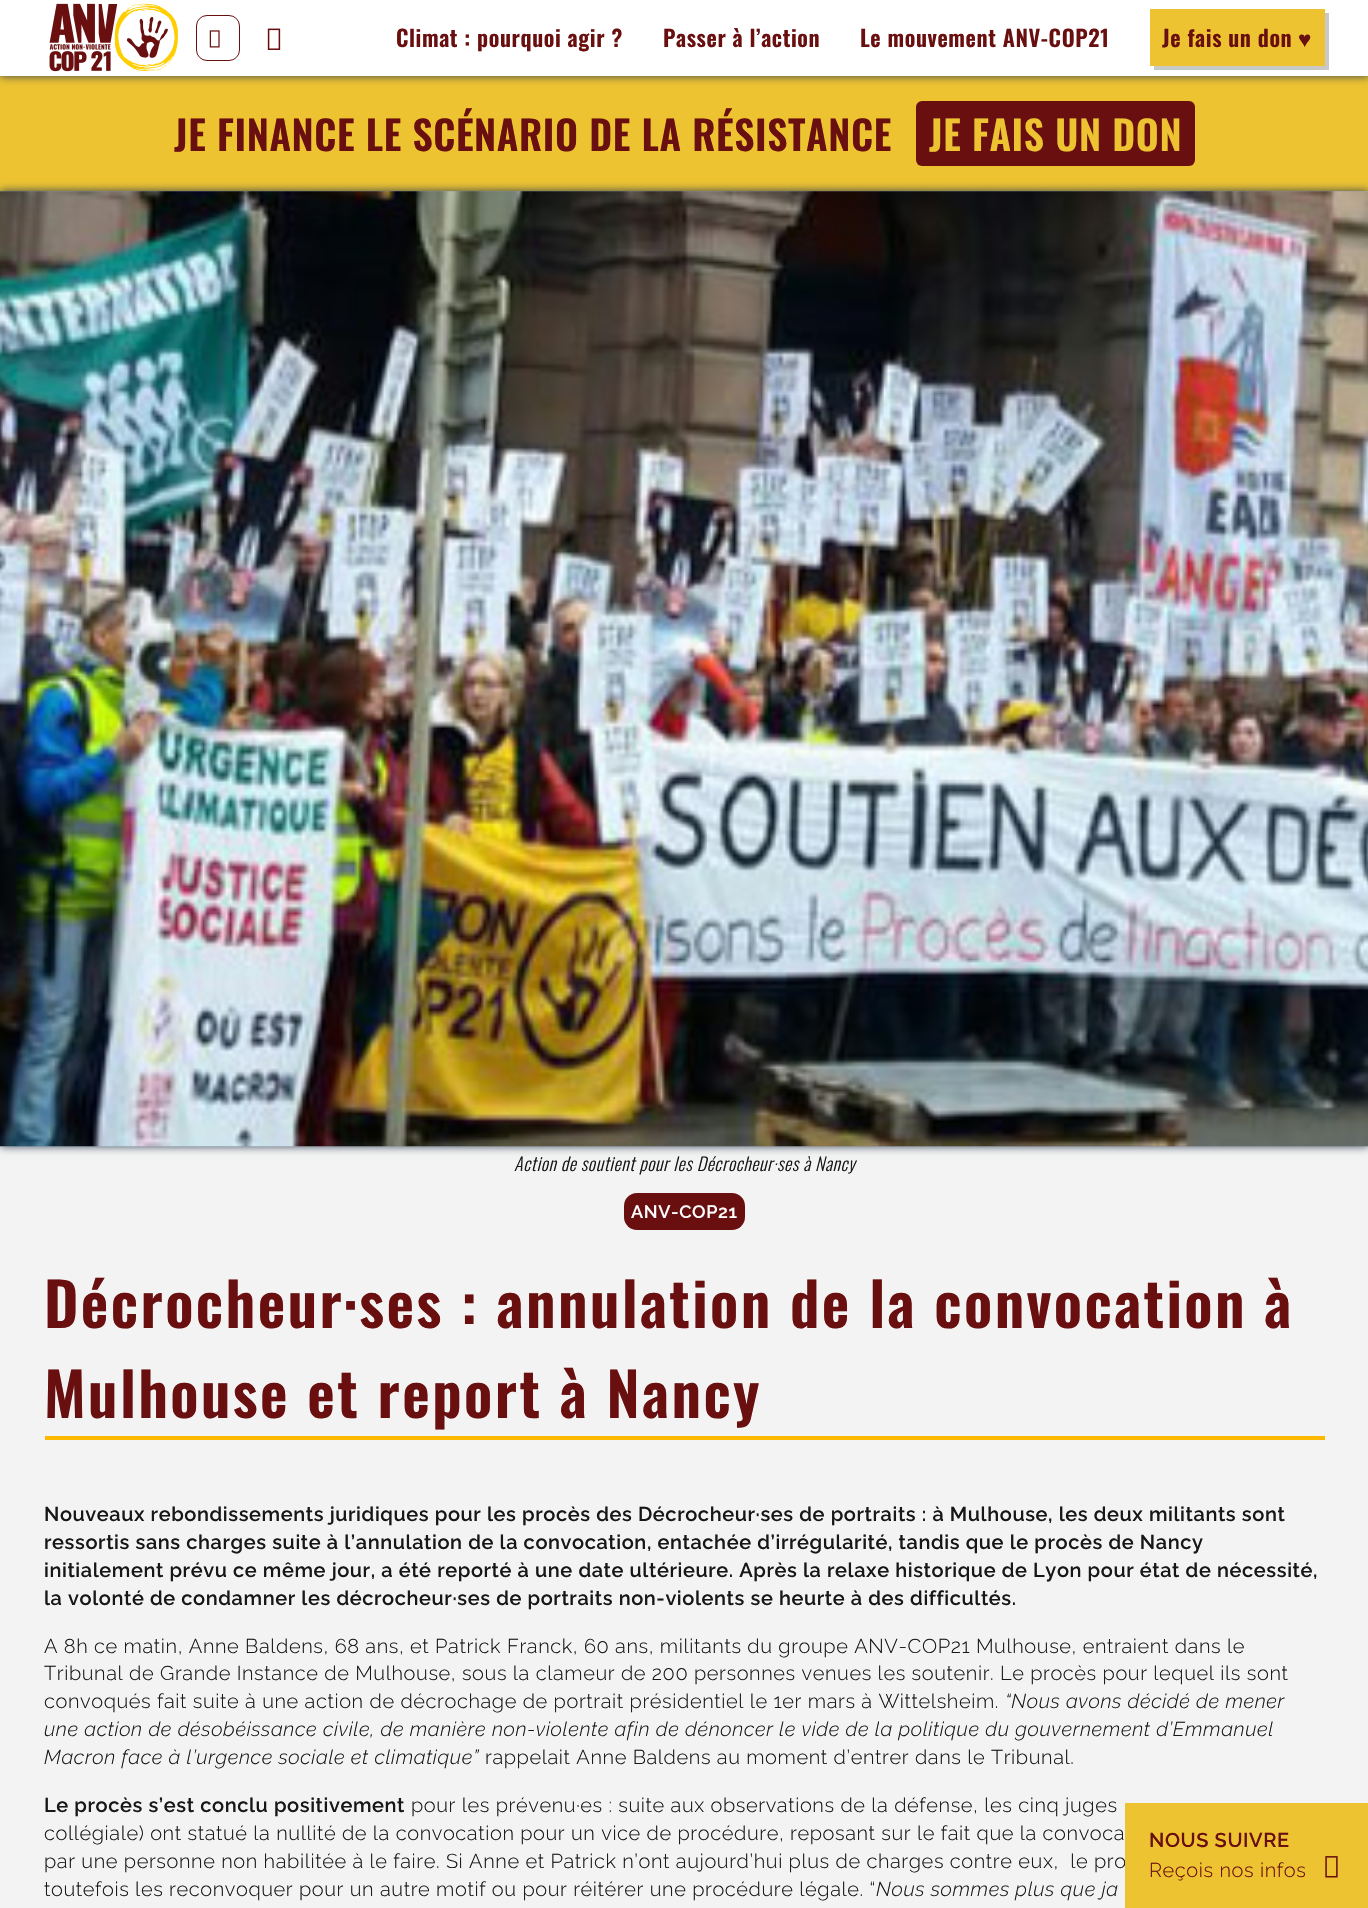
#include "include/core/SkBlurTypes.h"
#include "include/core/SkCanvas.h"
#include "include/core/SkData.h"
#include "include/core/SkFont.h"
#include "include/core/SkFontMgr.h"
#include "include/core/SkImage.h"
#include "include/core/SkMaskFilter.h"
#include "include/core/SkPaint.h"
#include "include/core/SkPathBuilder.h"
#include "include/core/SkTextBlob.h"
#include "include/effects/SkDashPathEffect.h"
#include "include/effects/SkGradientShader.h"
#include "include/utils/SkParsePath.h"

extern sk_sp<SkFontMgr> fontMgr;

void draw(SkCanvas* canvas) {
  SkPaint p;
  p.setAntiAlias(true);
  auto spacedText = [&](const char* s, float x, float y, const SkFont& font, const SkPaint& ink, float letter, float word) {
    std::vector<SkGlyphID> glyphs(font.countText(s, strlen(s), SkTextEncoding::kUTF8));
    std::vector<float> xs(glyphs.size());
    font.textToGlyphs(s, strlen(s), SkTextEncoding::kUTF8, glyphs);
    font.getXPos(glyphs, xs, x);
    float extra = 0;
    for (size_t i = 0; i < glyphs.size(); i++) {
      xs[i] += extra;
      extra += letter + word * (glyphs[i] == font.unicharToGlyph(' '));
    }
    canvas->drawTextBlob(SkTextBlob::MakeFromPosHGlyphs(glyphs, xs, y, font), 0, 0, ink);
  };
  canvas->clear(SkColorSetRGB(243, 243, 243));
  p.setColor(SkColorSetRGB(237, 195, 49));
  canvas->drawRect(SkRect::MakeLTRB(0, 76, 1368, 191), p);
  p.setColor(SkColorSetRGB(45, 63, 83));
  p.setMaskFilter(SkMaskFilter::MakeBlur(kNormal_SkBlurStyle, 4.5f));
  canvas->drawRect(SkRect::MakeLTRB(0, 0, 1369, 76), p);
  p.setMaskFilter(nullptr);
  p.setColor(SK_ColorWHITE);
  canvas->drawRect(SkRect::MakeLTRB(0, 0, 1368, 76), p);
  canvas->drawImageRect(SkImages::DeferredFromEncodedData(SkData::MakeFromFileName("images/1.png")), SkRect::MakeLTRB(49, 3, 178, 72), SkSamplingOptions());
  p.setStyle(SkPaint::kStroke_Style);
  p.setStrokeWidth(1);
  p.setColor(SkColorSetRGB(105, 15, 15));
  canvas->drawRoundRect(SkRect::MakeLTRB(196.5f, 15.5f, 239.5f, 60.5f), 10.5f, 10.5f, p);
  canvas->drawImageRect(SkImages::DeferredFromEncodedData(SkData::MakeFromFileName("images/2.png")), SkRect::MakeLTRB(209, 30, 220, 48), SkSamplingOptions());
  canvas->drawImageRect(SkImages::DeferredFromEncodedData(SkData::MakeFromFileName("images/3.png")), SkRect::MakeLTRB(267, 28, 281, 50), SkSamplingOptions());
  p.setStyle(SkPaint::kFill_Style);
  p.setColor(SkColorSetRGB(201, 201, 201));
  canvas->drawPath(SkPathBuilder().moveTo(1154, 66).lineTo(1154, 70).lineTo(1329, 70).lineTo(1329, 13).lineTo(1325, 13).lineTo(1325, 66).close().detach(), p);
  p.setColor(SkColorSetRGB(237, 195, 49));
  canvas->drawRect(SkRect::MakeLTRB(1150, 9, 1325, 66), p);
  p.setColor(SkColorSetRGB(105, 15, 15));
  canvas->drawRoundRect(SkRect::MakeLTRB(916, 101, 1195, 166), 6, 6, p);
  p.setColor(SkColorSetRGB(45, 63, 83));
  p.setMaskFilter(SkMaskFilter::MakeBlur(kNormal_SkBlurStyle, 4.5f));
  canvas->drawRect(SkRect::MakeLTRB(0, 191, 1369, 1146), p);
  p.setMaskFilter(nullptr);
  canvas->drawImageRect(SkImages::DeferredFromEncodedData(SkData::MakeFromFileName("images/4.png")), SkRect::MakeLTRB(0, 191, 1368, 1147), SkSamplingOptions());
  p.setColor(SkColorSetRGB(105, 15, 15));
  canvas->drawRoundRect(SkRect::MakeLTRB(624, 1193, 745, 1230), 13, 13, p);
  p.setColor(SkColorSetRGB(252, 185, 0));
  canvas->drawRect(SkRect::MakeLTRB(45, 1436, 1325, 1440), p);
  SkFont font1(fontMgr->matchFamilyStyle("Oswald", SkFontStyle(600, SkFontStyle::kNormal_Width, SkFontStyle::kUpright_Slant)), 22.5f);
  font1.setSubpixel(true);
  p.setColor(SkColorSetRGB(105, 15, 15));
  spacedText("Climat : pourquoi agir ?", 396, 47, font1, p, 0.6f, 0);
  spacedText("Passer à l’action", 663, 47, font1, p, 0.6f, 0);
  spacedText("Le mouvement ANV-COP21", 860, 47, font1, p, 0.6f, 0);
  spacedText("Je fais un don", 1162, 47, font1, p, 0.6f, 0);
  SkFont font2(fontMgr->matchFamilyStyle("Liberation Sans", SkFontStyle::Bold()), 22.5f);
  font2.setSubpixel(true);
  spacedText("♥", 1298, 47, font2, p, 0.6f, 0);
  SkFont font3(fontMgr->matchFamilyStyle("Oswald", SkFontStyle(600, SkFontStyle::kNormal_Width, SkFontStyle::kUpright_Slant)), 40);
  font3.setSubpixel(true);
  spacedText("JE FINANCE LE SCÉNARIO DE LA RÉSISTANCE", 174, 151, font3, p, 0.6f, 0);
  p.setColor(SkColorSetRGB(237, 195, 49));
  spacedText("JE FAIS UN DON", 929, 151, font3, p, 0.6f, 0);
  SkFont font4(fontMgr->matchFamilyStyle("Oswald", SkFontStyle(300, SkFontStyle::kNormal_Width, SkFontStyle::kItalic_Slant)), 18);
  font4.setSubpixel(true);
  p.setColor(SkColorSetRGB(23, 23, 23));
  spacedText("Action de soutient pour les Décrocheur·ses à Nancy", 514, 1171, font4, p, 0.6f, 0);
  SkFont font5(fontMgr->matchFamilyStyle("Raleway", SkFontStyle(600, SkFontStyle::kNormal_Width, SkFontStyle::kUpright_Slant)), 18);
  font5.setSubpixel(true);
  p.setColor(SK_ColorWHITE);
  spacedText("ANV-COP21", 631, 1218, font5, p, 0.6f, 0);
  SkFont font6(fontMgr->matchFamilyStyle("Oswald", SkFontStyle(600, SkFontStyle::kNormal_Width, SkFontStyle::kUpright_Slant)), 60);
  font6.setSubpixel(true);
  p.setColor(SkColorSetRGB(105, 15, 15));
  spacedText("Décrocheur·ses : annulation de la convocation à", 44, 1328, font6, p, 2.4f, 0);
  spacedText("Mulhouse et report à Nancy", 44, 1418, font6, p, 2.4f, 0);
  SkFont font7(fontMgr->matchFamilyStyle("Raleway", SkFontStyle(600, SkFontStyle::kNormal_Width, SkFontStyle::kUpright_Slant)), 20);
  font7.setSubpixel(true);
  p.setColor(SkColorSetRGB(23, 23, 23));
  spacedText("Nouveaux rebondissements juridiques pour les procès des Décrocheur·ses de portraits : à Mulhouse, les deux militants sont", 44, 1521, font7, p, 0.6f, 0);
  spacedText("ressortis sans charges suite à l’annulation de la convocation, entachée d’irrégularité, tandis que le procès de Nancy", 44, 1549, font7, p, 0.6f, 0);
  spacedText("initialement prévu ce même jour, a été reporté à une date ultérieure. Après la relaxe historique de Lyon pour état de nécessité,", 44, 1577, font7, p, 0.6f, 0);
  spacedText("la volonté de condamner les décrocheur·ses de portraits non-violents se heurte à des difficultés.", 44, 1605, font7, p, 0.6f, 0);
  SkFont font8(fontMgr->matchFamilyStyle("Raleway", SkFontStyle(300, SkFontStyle::kNormal_Width, SkFontStyle::kUpright_Slant)), 20);
  font8.setSubpixel(true);
  spacedText("A 8h ce matin, Anne Baldens, 68 ans, et Patrick Franck, 60 ans, militants du groupe ANV-COP21 Mulhouse, entraient dans le", 44, 1653, font8, p, 0.6f, 0);
  spacedText("Tribunal de Grande Instance de Mulhouse, sous la clameur de 200 personnes venues les soutenir. Le procès pour lequel ils sont", 44, 1680, font8, p, 0.6f, 0);
  spacedText("convoqués fait suite à une action de décrochage de portrait présidentiel le 1er mars à Wittelsheim.", 44, 1708, font8, p, 0.6f, 0);
  SkFont font9(fontMgr->matchFamilyStyle("Raleway", SkFontStyle(300, SkFontStyle::kNormal_Width, SkFontStyle::kItalic_Slant)), 20);
  font9.setSubpixel(true);
  spacedText("“Nous avons décidé de mener", 1005, 1708, font9, p, 0.6f, 0);
  spacedText("une action de désobéissance civile, de manière non-violente afin de dénoncer le vide de la politique du gouvernement d’Emmanuel", 44, 1736, font9, p, 0.6f, 0);
  spacedText("Macron face à l’urgence sociale et climatique”", 44, 1764, font9, p, 0.6f, 0);
  spacedText("rappelait Anne Baldens au moment d’entrer dans le Tribunal.", 485, 1764, font8, p, 0.6f, 0);
  spacedText("Le procès s’est conclu positivement", 44, 1812, font7, p, 0.6f, 0);
  spacedText("pour les prévenu·es : suite aux observations de la défense, les cinq juges", 411, 1812, font8, p, 0.6f, 0);
  spacedText("collégiale) ont statué la nullité de la convocation pour un vice de procédure, reposant sur le fait que la convoca", 44, 1840, font8, p, 0.6f, 0);
  spacedText("par une personne non habilitée à le faire. Si Anne et Patrick n’ont aujourd’hui plus de charges contre eux,  le pro", 44, 1868, font8, p, 0.6f, 0);
  spacedText("toutefois les reconvoquer pour un autre motif ou pour réitérer une procédure légale. “", 44, 1896, font8, p, 0.6f, 0);
  spacedText("Nous sommes plus que ja", 876, 1896, font9, p, 0.6f, 0);
  p.setColor(SkColorSetRGB(237, 195, 49));
  canvas->drawRect(SkRect::MakeLTRB(1125, 1803, 1368, 1908), p);
  p.setColor(SkColorSetRGB(105, 15, 15));
  spacedText("NOUS SUIVRE", 1149, 1847, font7, p, 0.6f, 0);
  spacedText("Reçois nos infos", 1149, 1877, font8, p, 0.6f, 0);
  canvas->drawImageRect(SkImages::DeferredFromEncodedData(SkData::MakeFromFileName("images/5.png")), SkRect::MakeLTRB(1325, 1856, 1338, 1878), SkSamplingOptions());
}
